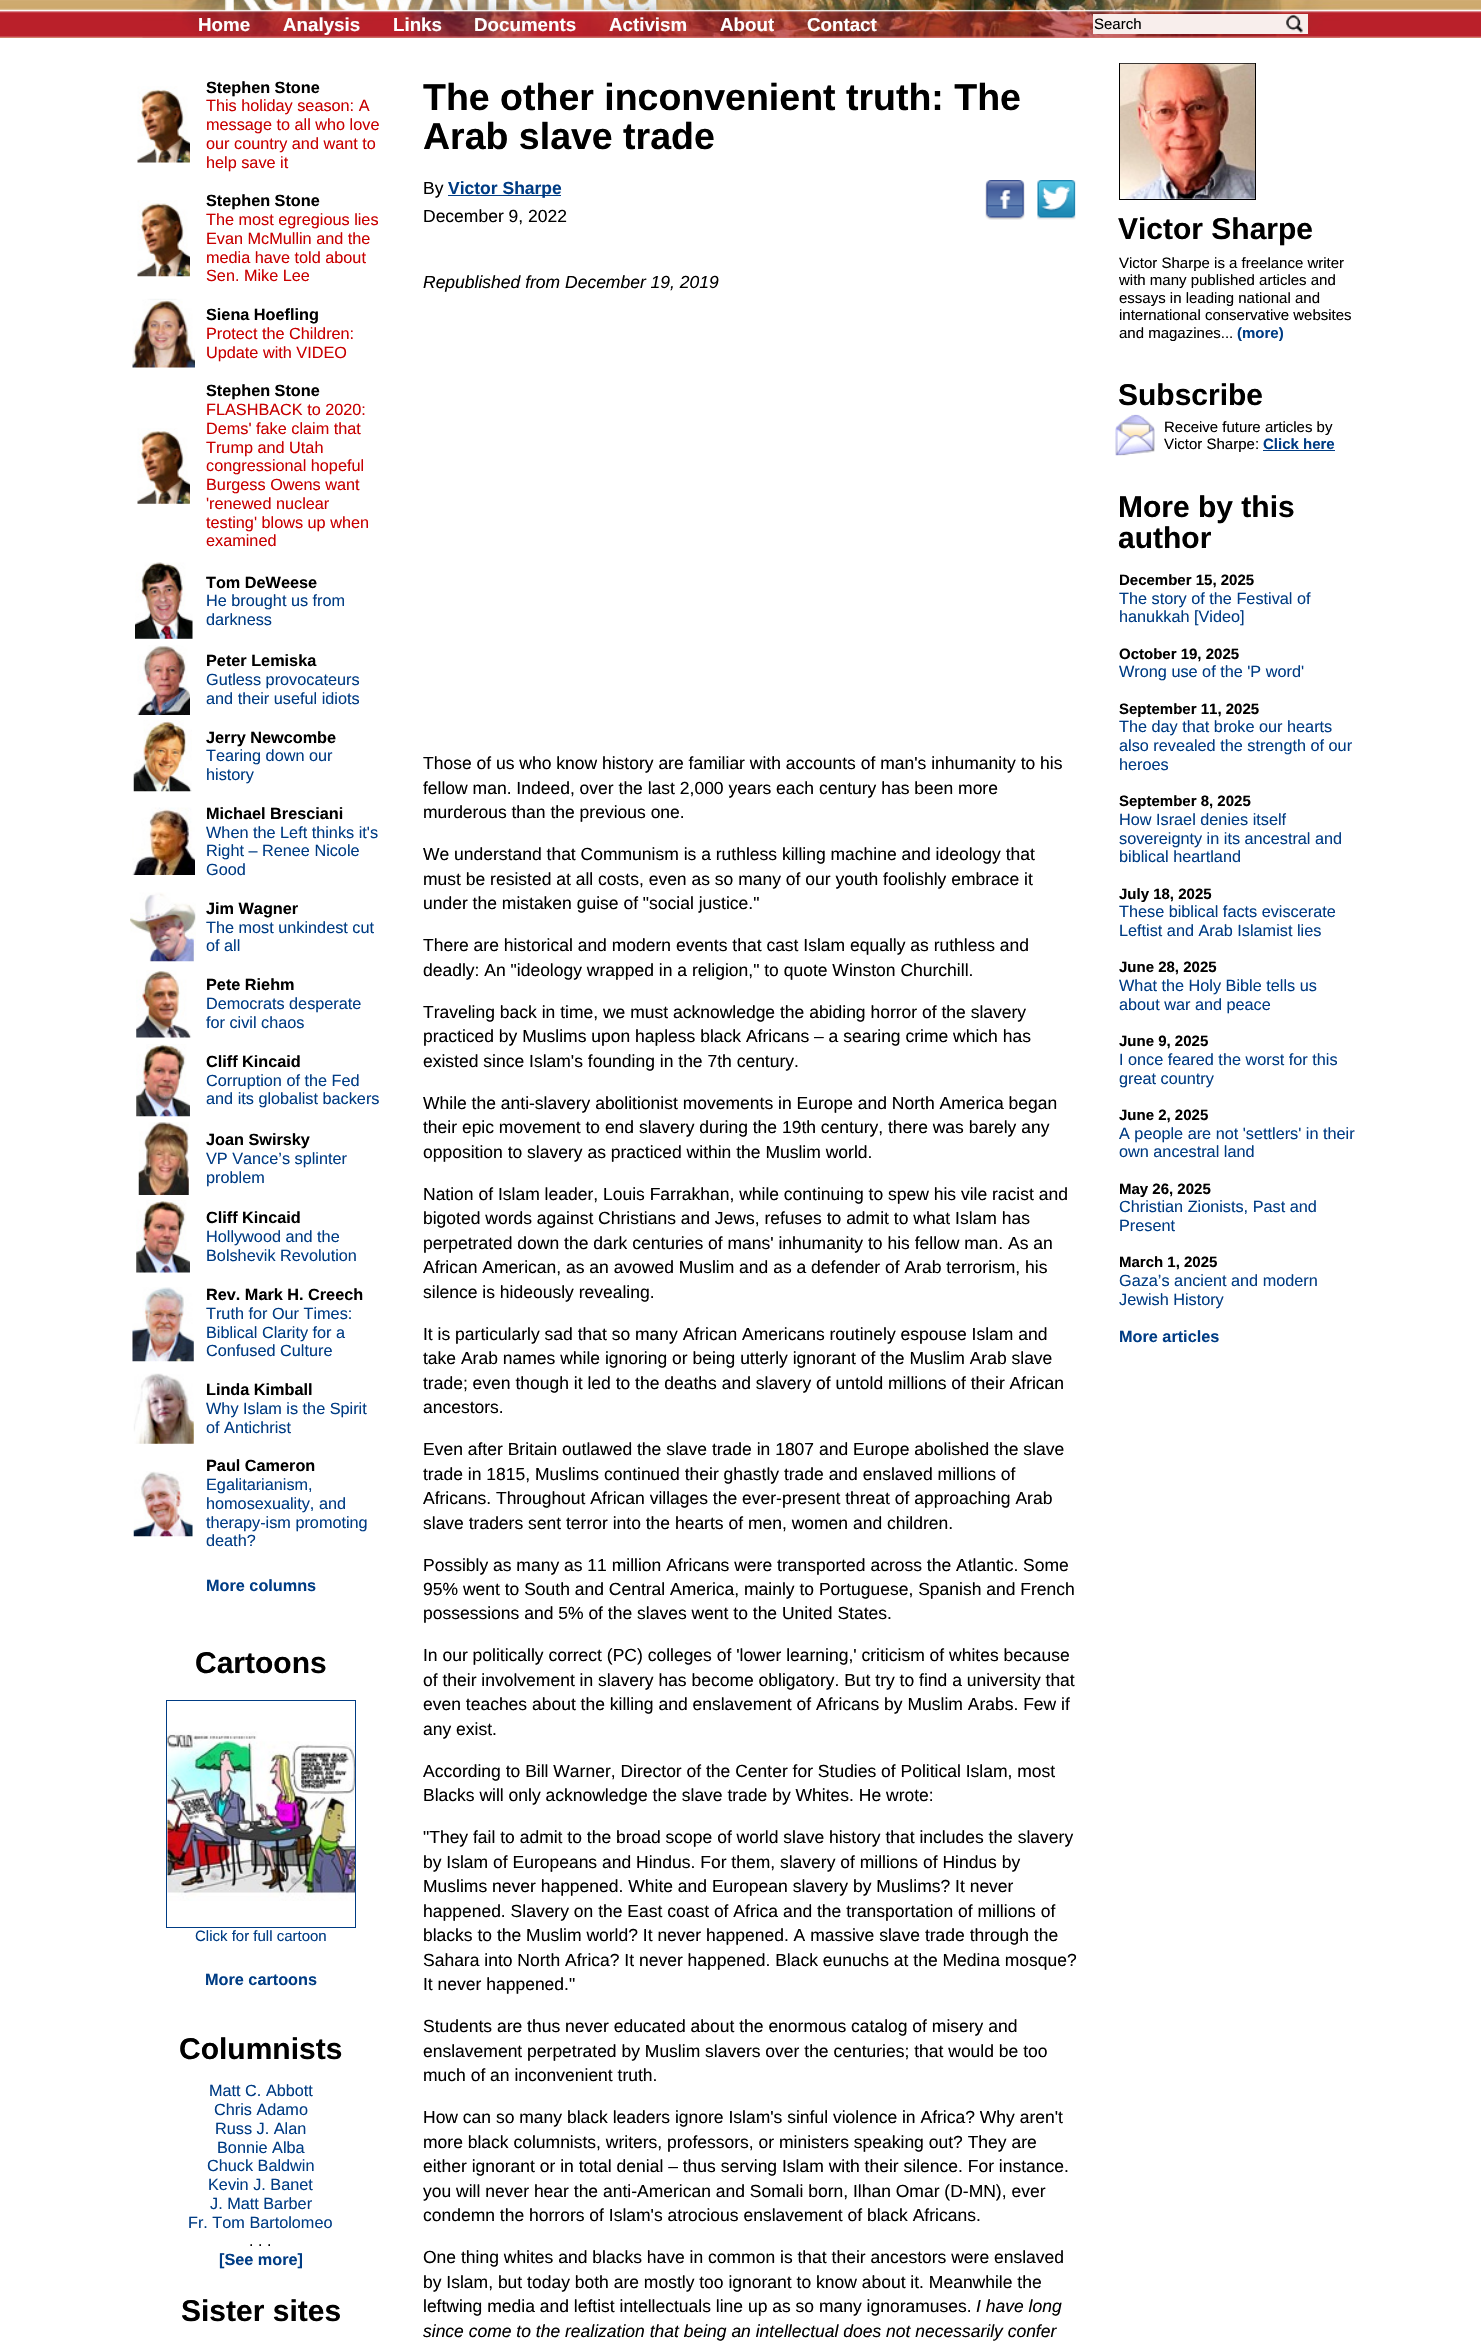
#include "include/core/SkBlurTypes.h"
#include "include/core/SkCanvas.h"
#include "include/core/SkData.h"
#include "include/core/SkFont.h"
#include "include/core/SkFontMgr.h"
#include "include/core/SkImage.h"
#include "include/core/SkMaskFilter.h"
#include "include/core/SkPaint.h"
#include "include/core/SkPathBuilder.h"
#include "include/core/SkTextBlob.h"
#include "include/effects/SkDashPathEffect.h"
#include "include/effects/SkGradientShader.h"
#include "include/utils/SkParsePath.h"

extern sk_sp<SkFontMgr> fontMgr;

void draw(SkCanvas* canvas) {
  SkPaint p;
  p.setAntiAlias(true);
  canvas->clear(SK_ColorWHITE);
  p.setColor(SkColorSetRGB(209, 173, 116));
  canvas->drawRect(SkRect::MakeLTRB(0, 0, 1481, 38), p);
  canvas->drawImageRect(SkImages::DeferredFromEncodedData(SkData::MakeFromFileName("images/1.png")), SkRect::MakeLTRB(0, 1, 1481, 38), SkSamplingOptions());
  canvas->drawImageRect(SkImages::DeferredFromEncodedData(SkData::MakeFromFileName("images/2.png")), SkRect::MakeLTRB(142, 0, 1340, 38), SkSamplingOptions());
  p.setColor(SkColorSetRGB(248, 238, 236));
  canvas->drawRect(SkRect::MakeLTRB(1093, 14, 1308, 34), p);
  canvas->drawImageRect(SkImages::DeferredFromEncodedData(SkData::MakeFromFileName("images/3.png")), SkRect::MakeLTRB(1286, 14, 1303, 33), SkSamplingOptions());
  canvas->drawImageRect(SkImages::DeferredFromEncodedData(SkData::MakeFromFileName("images/4.png")), SkRect::MakeLTRB(137, 86, 190, 163), SkSamplingOptions());
  canvas->drawImageRect(SkImages::DeferredFromEncodedData(SkData::MakeFromFileName("images/5.png")), SkRect::MakeLTRB(137, 200, 190, 277), SkSamplingOptions());
  canvas->drawImageRect(SkImages::DeferredFromEncodedData(SkData::MakeFromFileName("images/6.png")), SkRect::MakeLTRB(132, 298, 195, 368), SkSamplingOptions());
  canvas->drawImageRect(SkImages::DeferredFromEncodedData(SkData::MakeFromFileName("images/7.png")), SkRect::MakeLTRB(137, 428, 190, 504), SkSamplingOptions());
  canvas->drawImageRect(SkImages::DeferredFromEncodedData(SkData::MakeFromFileName("images/8.png")), SkRect::MakeLTRB(135, 562, 193, 639), SkSamplingOptions());
  canvas->drawImageRect(SkImages::DeferredFromEncodedData(SkData::MakeFromFileName("images/9.png")), SkRect::MakeLTRB(137, 645, 190, 715), SkSamplingOptions());
  canvas->drawImageRect(SkImages::DeferredFromEncodedData(SkData::MakeFromFileName("images/10.png")), SkRect::MakeLTRB(133, 720, 192, 792), SkSamplingOptions());
  canvas->drawImageRect(SkImages::DeferredFromEncodedData(SkData::MakeFromFileName("images/11.png")), SkRect::MakeLTRB(132, 807, 195, 875), SkSamplingOptions());
  canvas->drawImageRect(SkImages::DeferredFromEncodedData(SkData::MakeFromFileName("images/12.png")), SkRect::MakeLTRB(130, 892, 196, 962), SkSamplingOptions());
  canvas->drawImageRect(SkImages::DeferredFromEncodedData(SkData::MakeFromFileName("images/13.png")), SkRect::MakeLTRB(136, 970, 192, 1038), SkSamplingOptions());
  canvas->drawImageRect(SkImages::DeferredFromEncodedData(SkData::MakeFromFileName("images/14.png")), SkRect::MakeLTRB(136, 1044, 190, 1117), SkSamplingOptions());
  canvas->drawImageRect(SkImages::DeferredFromEncodedData(SkData::MakeFromFileName("images/15.png")), SkRect::MakeLTRB(138, 1122, 189, 1195), SkSamplingOptions());
  canvas->drawImageRect(SkImages::DeferredFromEncodedData(SkData::MakeFromFileName("images/16.png")), SkRect::MakeLTRB(136, 1200, 190, 1273), SkSamplingOptions());
  canvas->drawImageRect(SkImages::DeferredFromEncodedData(SkData::MakeFromFileName("images/17.png")), SkRect::MakeLTRB(132, 1287, 194, 1362), SkSamplingOptions());
  canvas->drawImageRect(SkImages::DeferredFromEncodedData(SkData::MakeFromFileName("images/18.png")), SkRect::MakeLTRB(133, 1373, 194, 1444), SkSamplingOptions());
  canvas->drawImageRect(SkImages::DeferredFromEncodedData(SkData::MakeFromFileName("images/19.png")), SkRect::MakeLTRB(133, 1471, 193, 1537), SkSamplingOptions());
  p.setStyle(SkPaint::kStroke_Style);
  p.setStrokeWidth(1);
  p.setColor(SkColorSetRGB(0, 60, 132));
  canvas->drawRect(SkRect::MakeLTRB(166.5f, 1700.5f, 355.5f, 1927.5f), p);
  canvas->drawImageRect(SkImages::DeferredFromEncodedData(SkData::MakeFromFileName("images/20.png")), SkRect::MakeLTRB(167, 1731, 355, 1901), SkSamplingOptions());
  canvas->drawImageRect(SkImages::DeferredFromEncodedData(SkData::MakeFromFileName("images/21.png")), SkRect::MakeLTRB(985, 180, 1025, 220), SkSamplingOptions());
  canvas->drawImageRect(SkImages::DeferredFromEncodedData(SkData::MakeFromFileName("images/22.png")), SkRect::MakeLTRB(1037, 180, 1076, 220), SkSamplingOptions());
  p.setStyle(SkPaint::kFill_Style);
  canvas->drawRect(SkRect::MakeLTRB(448, 195, 561, 196), p);
  p.setStyle(SkPaint::kStroke_Style);
  p.setColor(SK_ColorBLACK);
  canvas->drawRect(SkRect::MakeLTRB(1119.5f, 63.5f, 1255.5f, 199.5f), p);
  canvas->drawImageRect(SkImages::DeferredFromEncodedData(SkData::MakeFromFileName("images/23.png")), SkRect::MakeLTRB(1120, 63, 1255, 199), SkSamplingOptions());
  canvas->drawImageRect(SkImages::DeferredFromEncodedData(SkData::MakeFromFileName("images/24.png")), SkRect::MakeLTRB(1115, 414, 1155, 456), SkSamplingOptions());
  p.setStyle(SkPaint::kFill_Style);
  p.setColor(SkColorSetRGB(0, 60, 132));
  canvas->drawRect(SkRect::MakeLTRB(1263, 450, 1335, 451), p);
  SkFont font1(fontMgr->matchFamilyStyle("Liberation Sans", SkFontStyle::Bold()), 18.75f);
  font1.setSubpixel(true);
  p.setColor(SK_ColorWHITE);
  canvas->drawString("Home", 198, 31, font1, p);
  canvas->drawString("Analysis", 283, 31, font1, p);
  canvas->drawString("Links", 393, 31, font1, p);
  canvas->drawString("Documents", 474, 31, font1, p);
  canvas->drawString("Activism", 609, 31, font1, p);
  canvas->drawString("About", 720, 31, font1, p);
  canvas->drawString("Contact", 807, 31, font1, p);
  SkFont font2(fontMgr->matchFamilyStyle("Liberation Sans", SkFontStyle::Normal()), 15);
  font2.setSubpixel(true);
  p.setColor(SK_ColorBLACK);
  canvas->drawString("Search", 1094, 29, font2, p);
  SkFont font3(fontMgr->matchFamilyStyle("Liberation Sans", SkFontStyle::Bold()), 16.25f);
  font3.setSubpixel(true);
  canvas->drawString("Stephen Stone", 206, 93, font3, p);
  SkFont font4(fontMgr->matchFamilyStyle("Liberation Sans", SkFontStyle::Normal()), 16.25f);
  font4.setSubpixel(true);
  p.setColor(SkColorSetRGB(200, 0, 0));
  canvas->drawString("This holiday season: A", 206, 111, font4, p);
  canvas->drawString("message to all who love", 206, 130, font4, p);
  canvas->drawString("our country and want to", 206, 149, font4, p);
  canvas->drawString("help save it", 206, 168, font4, p);
  p.setColor(SK_ColorBLACK);
  canvas->drawString("Stephen Stone", 206, 206, font3, p);
  p.setColor(SkColorSetRGB(200, 0, 0));
  canvas->drawString("The most egregious lies", 206, 225, font4, p);
  canvas->drawString("Evan McMullin and the", 206, 244, font4, p);
  canvas->drawString("media have told about", 206, 263, font4, p);
  canvas->drawString("Sen. Mike Lee", 206, 281, font4, p);
  p.setColor(SK_ColorBLACK);
  canvas->drawString("Siena Hoefling", 206, 320, font3, p);
  p.setColor(SkColorSetRGB(200, 0, 0));
  canvas->drawString("Protect the Children:", 206, 339, font4, p);
  canvas->drawString("Update with VIDEO", 206, 358, font4, p);
  p.setColor(SK_ColorBLACK);
  canvas->drawString("Stephen Stone", 206, 396, font3, p);
  p.setColor(SkColorSetRGB(200, 0, 0));
  canvas->drawString("FLASHBACK to 2020:", 206, 415, font4, p);
  canvas->drawString("Dems' fake claim that", 206, 434, font4, p);
  canvas->drawString("Trump and Utah", 206, 453, font4, p);
  canvas->drawString("congressional hopeful", 206, 471, font4, p);
  canvas->drawString("Burgess Owens want", 206, 490, font4, p);
  canvas->drawString("'renewed nuclear", 206, 509, font4, p);
  canvas->drawString("testing' blows up when", 206, 528, font4, p);
  canvas->drawString("examined", 206, 546, font4, p);
  p.setColor(SK_ColorBLACK);
  canvas->drawString("Tom DeWeese", 206, 588, font3, p);
  p.setColor(SkColorSetRGB(0, 60, 132));
  canvas->drawString("He brought us from", 206, 606, font4, p);
  canvas->drawString("darkness", 206, 625, font4, p);
  p.setColor(SK_ColorBLACK);
  canvas->drawString("Peter Lemiska", 206, 666, font3, p);
  p.setColor(SkColorSetRGB(0, 60, 132));
  canvas->drawString("Gutless provocateurs", 206, 685, font4, p);
  canvas->drawString("and their useful idiots", 206, 704, font4, p);
  p.setColor(SK_ColorBLACK);
  canvas->drawString("Jerry Newcombe", 206, 743, font3, p);
  p.setColor(SkColorSetRGB(0, 60, 132));
  canvas->drawString("Tearing down our", 206, 761, font4, p);
  canvas->drawString("history", 206, 780, font4, p);
  p.setColor(SK_ColorBLACK);
  canvas->drawString("Michael Bresciani", 206, 819, font3, p);
  p.setColor(SkColorSetRGB(0, 60, 132));
  canvas->drawString("When the Left thinks it's", 206, 838, font4, p);
  canvas->drawString("Right – Renee Nicole", 206, 856, font4, p);
  canvas->drawString("Good", 206, 875, font4, p);
  p.setColor(SK_ColorBLACK);
  canvas->drawString("Jim Wagner", 206, 914, font3, p);
  p.setColor(SkColorSetRGB(0, 60, 132));
  canvas->drawString("The most unkindest cut", 206, 933, font4, p);
  canvas->drawString("of all", 206, 951, font4, p);
  p.setColor(SK_ColorBLACK);
  canvas->drawString("Pete Riehm", 206, 990, font3, p);
  p.setColor(SkColorSetRGB(0, 60, 132));
  canvas->drawString("Democrats desperate", 206, 1009, font4, p);
  canvas->drawString("for civil chaos", 206, 1028, font4, p);
  p.setColor(SK_ColorBLACK);
  canvas->drawString("Cliff Kincaid", 206, 1067, font3, p);
  p.setColor(SkColorSetRGB(0, 60, 132));
  canvas->drawString("Corruption of the Fed", 206, 1086, font4, p);
  canvas->drawString("and its globalist backers", 206, 1104, font4, p);
  p.setColor(SK_ColorBLACK);
  canvas->drawString("Joan Swirsky", 206, 1145, font3, p);
  p.setColor(SkColorSetRGB(0, 60, 132));
  canvas->drawString("VP Vance’s splinter", 206, 1164, font4, p);
  canvas->drawString("problem", 206, 1183, font4, p);
  p.setColor(SK_ColorBLACK);
  canvas->drawString("Cliff Kincaid", 206, 1223, font3, p);
  p.setColor(SkColorSetRGB(0, 60, 132));
  canvas->drawString("Hollywood and the", 206, 1242, font4, p);
  canvas->drawString("Bolshevik Revolution", 206, 1261, font4, p);
  p.setColor(SK_ColorBLACK);
  canvas->drawString("Rev. Mark H. Creech", 206, 1300, font3, p);
  p.setColor(SkColorSetRGB(0, 60, 132));
  canvas->drawString("Truth for Our Times:", 206, 1319, font4, p);
  canvas->drawString("Biblical Clarity for a", 206, 1338, font4, p);
  canvas->drawString("Confused Culture", 206, 1356, font4, p);
  p.setColor(SK_ColorBLACK);
  canvas->drawString("Linda Kimball", 206, 1395, font3, p);
  p.setColor(SkColorSetRGB(0, 60, 132));
  canvas->drawString("Why Islam is the Spirit", 206, 1414, font4, p);
  canvas->drawString("of Antichrist", 206, 1433, font4, p);
  p.setColor(SK_ColorBLACK);
  canvas->drawString("Paul Cameron", 206, 1471, font3, p);
  p.setColor(SkColorSetRGB(0, 60, 132));
  canvas->drawString("Egalitarianism,", 206, 1490, font4, p);
  canvas->drawString("homosexuality, and", 206, 1509, font4, p);
  canvas->drawString("therapy-ism promoting", 206, 1528, font4, p);
  canvas->drawString("death?", 206, 1546, font4, p);
  canvas->drawString("More columns", 206, 1591, font3, p);
  SkFont font5(fontMgr->matchFamilyStyle("Liberation Sans", SkFontStyle::Bold()), 30);
  font5.setSubpixel(true);
  p.setColor(SK_ColorBLACK);
  canvas->drawString("Cartoons", 195, 1673, font5, p);
  p.setColor(SkColorSetRGB(0, 60, 132));
  canvas->drawString("Click for full cartoon", 195, 1941, font2, p);
  canvas->drawString("More cartoons", 205, 1985, font3, p);
  p.setColor(SK_ColorBLACK);
  canvas->drawString("Columnists", 179, 2059, font5, p);
  p.setColor(SkColorSetRGB(0, 60, 132));
  canvas->drawString("Matt C. Abbott", 209, 2096, font4, p);
  canvas->drawString("Chris Adamo", 214, 2115, font4, p);
  canvas->drawString("Russ J. Alan", 215, 2134, font4, p);
  canvas->drawString("Bonnie Alba", 217, 2153, font4, p);
  canvas->drawString("Chuck Baldwin", 207, 2171, font4, p);
  canvas->drawString("Kevin J. Banet", 208, 2190, font4, p);
  canvas->drawString("J. Matt Barber", 210, 2209, font4, p);
  canvas->drawString("Fr. Tom Bartolomeo", 188, 2228, font4, p);
  p.setColor(SK_ColorBLACK);
  canvas->drawString(". . .", 249, 2246, font4, p);
  p.setColor(SkColorSetRGB(0, 60, 132));
  canvas->drawString("[See more]", 219, 2265, font3, p);
  p.setColor(SK_ColorBLACK);
  canvas->drawString("Sister sites", 181, 2321, font5, p);
  SkFont font6(fontMgr->matchFamilyStyle("Liberation Sans", SkFontStyle::Bold()), 37.5f);
  font6.setSubpixel(true);
  canvas->drawString("The other inconvenient truth: The", 423, 110, font6, p);
  canvas->drawString("Arab slave trade", 423, 149, font6, p);
  SkFont font7(fontMgr->matchFamilyStyle("Liberation Sans", SkFontStyle::Normal()), 17.5f);
  font7.setSubpixel(true);
  canvas->drawString("By", 423, 194, font7, p);
  SkFont font8(fontMgr->matchFamilyStyle("Liberation Sans", SkFontStyle::Bold()), 17.5f);
  font8.setSubpixel(true);
  p.setColor(SkColorSetRGB(0, 60, 132));
  canvas->drawString("Victor Sharpe", 448, 194, font8, p);
  p.setColor(SK_ColorBLACK);
  canvas->drawString("December 9, 2022", 423, 222, font7, p);
  SkFont font9(fontMgr->matchFamilyStyle("Liberation Sans", SkFontStyle::Italic()), 17.5f);
  font9.setSubpixel(true);
  canvas->drawString("Republished from December 19, 2019", 423, 288, font9, p);
  canvas->drawString("Those of us who know history are familiar with accounts of man's inhumanity to his", 423, 769, font7, p);
  canvas->drawString("fellow man. Indeed, over the last 2,000 years each century has been more", 423, 794, font7, p);
  canvas->drawString("murderous than the previous one.", 423, 818, font7, p);
  canvas->drawString("We understand that Communism is a ruthless killing machine and ideology that", 423, 860, font7, p);
  canvas->drawString("must be resisted at all costs, even as so many of our youth foolishly embrace it", 423, 885, font7, p);
  canvas->drawString("under the mistaken guise of \"social justice.\"", 423, 909, font7, p);
  canvas->drawString("There are historical and modern events that cast Islam equally as ruthless and", 423, 951, font7, p);
  canvas->drawString("deadly: An \"ideology wrapped in a religion,\" to quote Winston Churchill.", 423, 976, font7, p);
  canvas->drawString("Traveling back in time, we must acknowledge the abiding horror of the slavery", 423, 1018, font7, p);
  canvas->drawString("practiced by Muslims upon hapless black Africans – a searing crime which has", 423, 1042, font7, p);
  canvas->drawString("existed since Islam's founding in the 7th century.", 423, 1067, font7, p);
  canvas->drawString("While the anti-slavery abolitionist movements in Europe and North America began", 423, 1109, font7, p);
  canvas->drawString("their epic movement to end slavery during the 19th century, there was barely any", 423, 1133, font7, p);
  canvas->drawString("opposition to slavery as practiced within the Muslim world.", 423, 1158, font7, p);
  canvas->drawString("Nation of Islam leader, Louis Farrakhan, while continuing to spew his vile racist and", 423, 1200, font7, p);
  canvas->drawString("bigoted words against Christians and Jews, refuses to admit to what Islam has", 423, 1224, font7, p);
  canvas->drawString("perpetrated down the dark centuries of mans' inhumanity to his fellow man. As an", 423, 1249, font7, p);
  canvas->drawString("African American, as an avowed Muslim and as a defender of Arab terrorism, his", 423, 1273, font7, p);
  canvas->drawString("silence is hideously revealing.", 423, 1298, font7, p);
  canvas->drawString("It is particularly sad that so many African Americans routinely espouse Islam and", 423, 1340, font7, p);
  canvas->drawString("take Arab names while ignoring or being utterly ignorant of the Muslim Arab slave", 423, 1364, font7, p);
  canvas->drawString("trade; even though it led to the deaths and slavery of untold millions of their African", 423, 1389, font7, p);
  canvas->drawString("ancestors.", 423, 1413, font7, p);
  canvas->drawString("Even after Britain outlawed the slave trade in 1807 and Europe abolished the slave", 423, 1455, font7, p);
  canvas->drawString("trade in 1815, Muslims continued their ghastly trade and enslaved millions of", 423, 1480, font7, p);
  canvas->drawString("Africans. Throughout African villages the ever-present threat of approaching Arab", 423, 1504, font7, p);
  canvas->drawString("slave traders sent terror into the hearts of men, women and children.", 423, 1529, font7, p);
  canvas->drawString("Possibly as many as 11 million Africans were transported across the Atlantic. Some", 423, 1571, font7, p);
  canvas->drawString("95% went to South and Central America, mainly to Portuguese, Spanish and French", 423, 1595, font7, p);
  canvas->drawString("possessions and 5% of the slaves went to the United States.", 423, 1619, font7, p);
  canvas->drawString("In our politically correct (PC) colleges of 'lower learning,' criticism of whites because", 423, 1661, font7, p);
  canvas->drawString("of their involvement in slavery has become obligatory. But try to find a university that", 423, 1686, font7, p);
  canvas->drawString("even teaches about the killing and enslavement of Africans by Muslim Arabs. Few if", 423, 1710, font7, p);
  canvas->drawString("any exist.", 423, 1735, font7, p);
  canvas->drawString("According to Bill Warner, Director of the Center for Studies of Political Islam, most", 423, 1777, font7, p);
  canvas->drawString("Blacks will only acknowledge the slave trade by Whites. He wrote:", 423, 1801, font7, p);
  canvas->drawString("\"They fail to admit to the broad scope of world slave history that includes the slavery", 423, 1843, font7, p);
  canvas->drawString("by Islam of Europeans and Hindus. For them, slavery of millions of Hindus by", 423, 1868, font7, p);
  canvas->drawString("Muslims never happened. White and European slavery by Muslims? It never", 423, 1892, font7, p);
  canvas->drawString("happened. Slavery on the East coast of Africa and the transportation of millions of", 423, 1917, font7, p);
  canvas->drawString("blacks to the Muslim world? It never happened. A massive slave trade through the", 423, 1941, font7, p);
  canvas->drawString("Sahara into North Africa? It never happened. Black eunuchs at the Medina mosque?", 423, 1966, font7, p);
  canvas->drawString("It never happened.\"", 423, 1990, font7, p);
  canvas->drawString("Students are thus never educated about the enormous catalog of misery and", 423, 2032, font7, p);
  canvas->drawString("enslavement perpetrated by Muslim slavers over the centuries; that would be too", 423, 2057, font7, p);
  canvas->drawString("much of an inconvenient truth.", 423, 2081, font7, p);
  canvas->drawString("How can so many black leaders ignore Islam's sinful violence in Africa? Why aren't", 423, 2123, font7, p);
  canvas->drawString("more black columnists, writers, professors, or ministers speaking out? They are", 423, 2148, font7, p);
  canvas->drawString("either ignorant or in total denial – thus serving Islam with their silence. For instance.", 423, 2172, font7, p);
  canvas->drawString("you will never hear the anti-American and Somali born, Ilhan Omar (D-MN), ever", 423, 2197, font7, p);
  canvas->drawString("condemn the horrors of Islam's atrocious enslavement of black Africans.", 423, 2221, font7, p);
  canvas->drawString("One thing whites and blacks have in common is that their ancestors were enslaved", 423, 2263, font7, p);
  canvas->drawString("by Islam, but today both are mostly too ignorant to know about it. Meanwhile the", 423, 2288, font7, p);
  canvas->drawString("leftwing media and leftist intellectuals line up as so many ignoramuses.", 423, 2312, font7, p);
  canvas->drawString("I have long", 976, 2312, font9, p);
  canvas->drawString("since come to the realization that being an intellectual does not necessarily confer", 423, 2337, font9, p);
  canvas->drawString("Victor Sharpe", 1118, 239, font5, p);
  canvas->drawString("Victor Sharpe is a freelance writer", 1119, 268, font2, p);
  canvas->drawString("with many published articles and", 1119, 285, font2, p);
  canvas->drawString("essays in leading national and", 1119, 303, font2, p);
  canvas->drawString("international conservative websites", 1119, 320, font2, p);
  canvas->drawString("and magazines...", 1119, 338, font2, p);
  SkFont font10(fontMgr->matchFamilyStyle("Liberation Sans", SkFontStyle::Bold()), 15);
  font10.setSubpixel(true);
  p.setColor(SkColorSetRGB(0, 60, 132));
  canvas->drawString("(more)", 1237, 338, font10, p);
  p.setColor(SK_ColorBLACK);
  canvas->drawString("Subscribe", 1118, 405, font5, p);
  canvas->drawString("Receive future articles by", 1164, 432, font2, p);
  canvas->drawString("Victor Sharpe:", 1164, 449, font2, p);
  p.setColor(SkColorSetRGB(0, 60, 132));
  canvas->drawString("Click here", 1263, 449, font10, p);
  p.setColor(SK_ColorBLACK);
  canvas->drawString("More by this", 1118, 517, font5, p);
  canvas->drawString("author", 1118, 548, font5, p);
  canvas->drawString("December 15, 2025", 1119, 585, font10, p);
  p.setColor(SkColorSetRGB(0, 60, 132));
  canvas->drawString("The story of the Festival of", 1119, 604, font4, p);
  canvas->drawString("hanukkah [Video]", 1119, 622, font4, p);
  p.setColor(SK_ColorBLACK);
  canvas->drawString("October 19, 2025", 1119, 659, font10, p);
  p.setColor(SkColorSetRGB(0, 60, 132));
  canvas->drawString("Wrong use of the 'P word'", 1119, 677, font4, p);
  p.setColor(SK_ColorBLACK);
  canvas->drawString("September 11, 2025", 1119, 714, font10, p);
  p.setColor(SkColorSetRGB(0, 60, 132));
  canvas->drawString("The day that broke our hearts", 1119, 732, font4, p);
  canvas->drawString("also revealed the strength of our", 1119, 751, font4, p);
  canvas->drawString("heroes", 1119, 770, font4, p);
  p.setColor(SK_ColorBLACK);
  canvas->drawString("September 8, 2025", 1119, 806, font10, p);
  p.setColor(SkColorSetRGB(0, 60, 132));
  canvas->drawString("How Israel denies itself", 1119, 825, font4, p);
  canvas->drawString("sovereignty in its ancestral and", 1119, 844, font4, p);
  canvas->drawString("biblical heartland", 1119, 862, font4, p);
  p.setColor(SK_ColorBLACK);
  canvas->drawString("July 18, 2025", 1119, 899, font10, p);
  p.setColor(SkColorSetRGB(0, 60, 132));
  canvas->drawString("These biblical facts eviscerate", 1119, 917, font4, p);
  canvas->drawString("Leftist and Arab Islamist lies", 1119, 936, font4, p);
  p.setColor(SK_ColorBLACK);
  canvas->drawString("June 28, 2025", 1119, 972, font10, p);
  p.setColor(SkColorSetRGB(0, 60, 132));
  canvas->drawString("What the Holy Bible tells us", 1119, 991, font4, p);
  canvas->drawString("about war and peace", 1119, 1010, font4, p);
  p.setColor(SK_ColorBLACK);
  canvas->drawString("June 9, 2025", 1119, 1046, font10, p);
  p.setColor(SkColorSetRGB(0, 60, 132));
  canvas->drawString("I once feared the worst for this", 1119, 1065, font4, p);
  canvas->drawString("great country", 1119, 1084, font4, p);
  p.setColor(SK_ColorBLACK);
  canvas->drawString("June 2, 2025", 1119, 1120, font10, p);
  p.setColor(SkColorSetRGB(0, 60, 132));
  canvas->drawString("A people are not 'settlers' in their", 1119, 1139, font4, p);
  canvas->drawString("own ancestral land", 1119, 1157, font4, p);
  p.setColor(SK_ColorBLACK);
  canvas->drawString("May 26, 2025", 1119, 1194, font10, p);
  p.setColor(SkColorSetRGB(0, 60, 132));
  canvas->drawString("Christian Zionists, Past and", 1119, 1212, font4, p);
  canvas->drawString("Present", 1119, 1231, font4, p);
  p.setColor(SK_ColorBLACK);
  canvas->drawString("March 1, 2025", 1119, 1267, font10, p);
  p.setColor(SkColorSetRGB(0, 60, 132));
  canvas->drawString("Gaza’s ancient and modern", 1119, 1286, font4, p);
  canvas->drawString("Jewish History", 1119, 1305, font4, p);
  canvas->drawString("More articles", 1119, 1342, font3, p);
}
